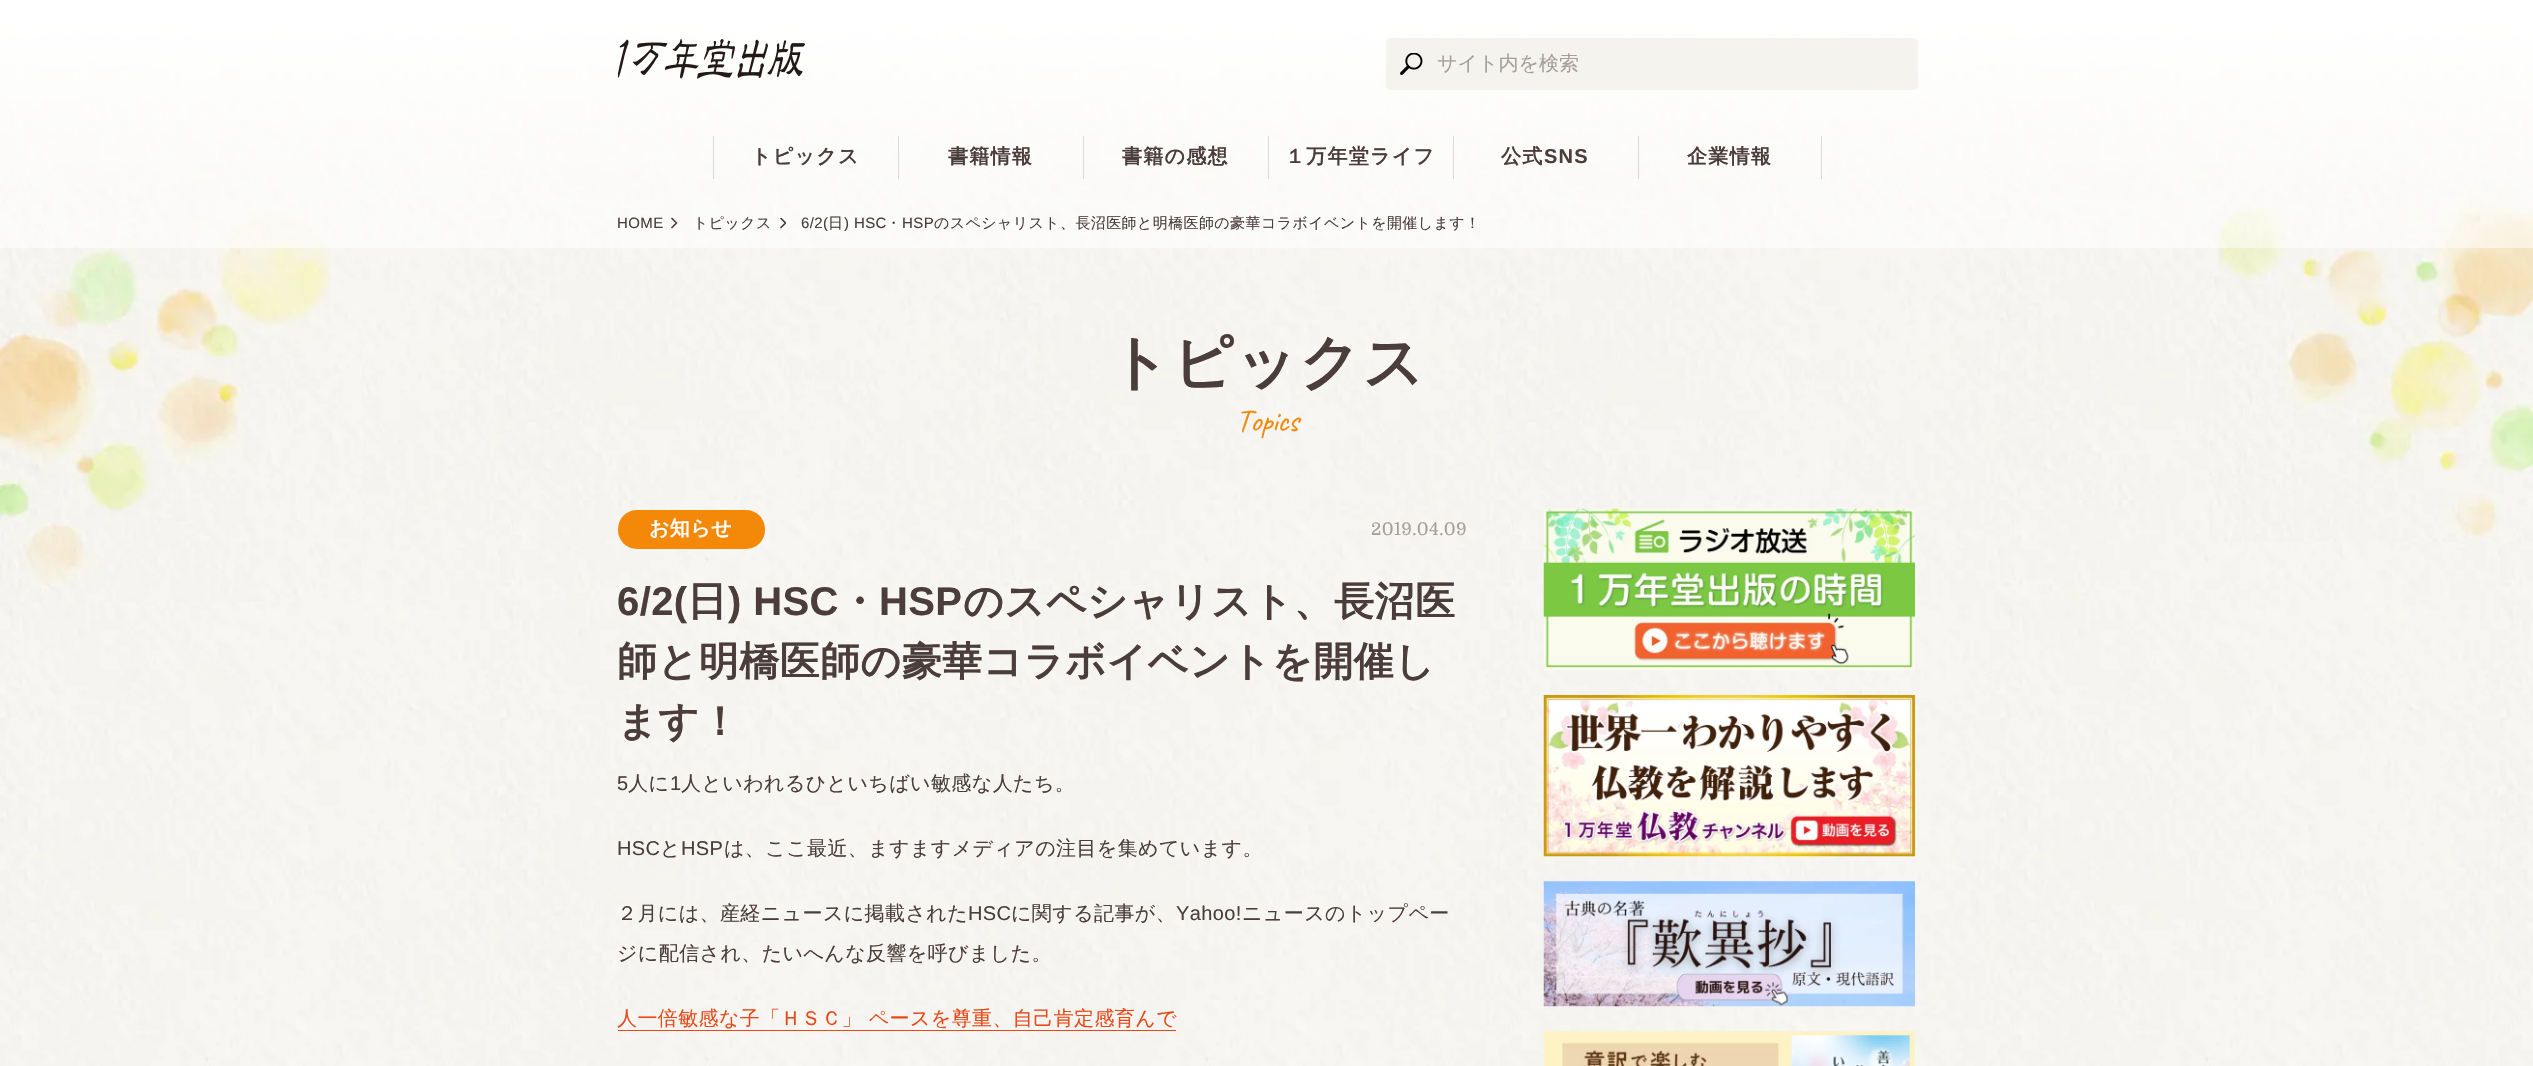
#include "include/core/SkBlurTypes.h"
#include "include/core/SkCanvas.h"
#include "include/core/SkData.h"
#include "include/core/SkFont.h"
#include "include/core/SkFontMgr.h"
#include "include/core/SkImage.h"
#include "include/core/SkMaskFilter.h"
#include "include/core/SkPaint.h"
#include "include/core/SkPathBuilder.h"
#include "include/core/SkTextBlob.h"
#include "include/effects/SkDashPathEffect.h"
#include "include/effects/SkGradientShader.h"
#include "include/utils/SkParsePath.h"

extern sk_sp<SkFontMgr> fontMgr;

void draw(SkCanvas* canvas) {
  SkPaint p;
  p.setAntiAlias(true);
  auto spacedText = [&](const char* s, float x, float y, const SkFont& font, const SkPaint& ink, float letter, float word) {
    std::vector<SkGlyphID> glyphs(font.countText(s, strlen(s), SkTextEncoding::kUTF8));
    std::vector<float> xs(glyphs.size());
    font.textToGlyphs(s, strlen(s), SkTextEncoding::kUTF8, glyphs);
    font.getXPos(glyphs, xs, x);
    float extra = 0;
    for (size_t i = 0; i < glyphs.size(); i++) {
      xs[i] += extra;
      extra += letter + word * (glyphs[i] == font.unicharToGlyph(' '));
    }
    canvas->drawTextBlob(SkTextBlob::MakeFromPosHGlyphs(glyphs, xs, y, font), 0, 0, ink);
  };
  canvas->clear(SK_ColorWHITE);
  canvas->drawImageRect(SkImages::DeferredFromEncodedData(SkData::MakeFromFileName("images/1.png")), SkRect::MakeLTRB(0, 2, 2533, 1066), SkSamplingOptions());
  canvas->drawImageRect(SkImages::DeferredFromEncodedData(SkData::MakeFromFileName("images/4.png")), SkRect::MakeLTRB(0, 183, 362, 602), SkSamplingOptions());
  canvas->drawImageRect(SkImages::DeferredFromEncodedData(SkData::MakeFromFileName("images/5.png")), SkRect::MakeLTRB(2209, 169, 2533, 542), SkSamplingOptions());
  {
    const SkColor colors[] = {SK_ColorWHITE, SkColorSetARGB(128, 255, 255, 255)};
    const float stops[] = {0, 1};
    const SkPoint ends[] = {{1267, 0}, {1267, 198}};
    p.setShader(SkGradientShader::MakeLinear(ends, colors, stops, 2, SkTileMode::kClamp));
    p.setAlpha(255);
  }
  canvas->drawRect(SkRect::MakeLTRB(0, 2, 2533, 198), p);
  canvas->drawImageRect(SkImages::DeferredFromEncodedData(SkData::MakeFromFileName("images/2.png")), SkRect::MakeLTRB(618, 39, 805, 79), SkSamplingOptions());
  p.setShader(nullptr);
  p.setColor(SkColorSetRGB(244, 243, 237));
  canvas->drawRoundRect(SkRect::MakeLTRB(1386, 38, 1918, 90), 5, 5, p);
  canvas->drawImageRect(SkImages::DeferredFromEncodedData(SkData::MakeFromFileName("images/3.png")), SkRect::MakeLTRB(1400, 53, 1423, 75), SkSamplingOptions());
  p.setColor(SkColorSetRGB(217, 217, 217));
  canvas->drawRect(SkRect::MakeLTRB(713, 136, 714, 179), p);
  canvas->drawRect(SkRect::MakeLTRB(898, 136, 899, 179), p);
  canvas->drawRect(SkRect::MakeLTRB(1083, 136, 1084, 179), p);
  canvas->drawRect(SkRect::MakeLTRB(1268, 136, 1269, 179), p);
  canvas->drawRect(SkRect::MakeLTRB(1453, 136, 1454, 179), p);
  canvas->drawRect(SkRect::MakeLTRB(1821, 136, 1822, 179), p);
  canvas->drawRect(SkRect::MakeLTRB(1638, 136, 1639, 179), p);
  p.setColor(SkColorSetARGB(128, 255, 255, 255));
  canvas->drawRect(SkRect::MakeLTRB(0, 198, 2533, 248), p);
  p.setStyle(SkPaint::kStroke_Style);
  p.setStrokeWidth(1.7f);
  p.setStrokeCap(SkPaint::kRound_Cap);
  p.setStrokeJoin(SkPaint::kRound_Join);
  p.setColor(SkColorSetRGB(76, 61, 61));
  canvas->drawPath(SkPathBuilder().moveTo(672, 218.5f).lineTo(676.5f, 223).lineTo(672, 227.5f).detach(), p);
  canvas->save();
  canvas->clipRect(SkRect::MakeLTRB(780, 218, 786, 229));
  canvas->drawPath(SkPathBuilder().moveTo(781, 218.5f).lineTo(785.5f, 223).lineTo(781, 227.5f).detach(), p);
  canvas->restore();
  p.setStyle(SkPaint::kFill_Style);
  p.setColor(SkColorSetRGB(244, 136, 9));
  canvas->drawRoundRect(SkRect::MakeLTRB(618, 510, 765, 549), 19, 19, p);
  p.setColor(SkColorSetRGB(233, 72, 22));
  canvas->drawRect(SkRect::MakeLTRB(618, 1030, 1176, 1031), p);
  canvas->drawImageRect(SkImages::DeferredFromEncodedData(SkData::MakeFromFileName("images/6.png")), SkRect::MakeLTRB(1543, 508, 1915, 670), SkSamplingOptions());
  canvas->drawImageRect(SkImages::DeferredFromEncodedData(SkData::MakeFromFileName("images/7.png")), SkRect::MakeLTRB(1543, 695, 1915, 857), SkSamplingOptions());
  canvas->drawImageRect(SkImages::DeferredFromEncodedData(SkData::MakeFromFileName("images/8.png")), SkRect::MakeLTRB(1543, 881, 1915, 1007), SkSamplingOptions());
  canvas->drawImageRect(SkImages::DeferredFromEncodedData(SkData::MakeFromFileName("images/9.png")), SkRect::MakeLTRB(1543, 1031, 1915, 1066), SkSamplingOptions());
  SkFont font1(fontMgr->matchFamilyStyle("WenQuanYi Zen Hei", SkFontStyle(500, SkFontStyle::kNormal_Width, SkFontStyle::kUpright_Slant)), 20);
  font1.setSubpixel(true);
  p.setColor(SkColorSetRGB(166, 158, 158));
  canvas->drawString("サイト内を検索", 1437, 70, font1, p);
  SkFont font2(fontMgr->matchFamilyStyle("WenQuanYi Zen Hei", SkFontStyle::Bold()), 20);
  font2.setSubpixel(true);
  p.setColor(SkColorSetRGB(76, 61, 61));
  spacedText("トピックス", 751, 163, font2, p, 1.25f, 0);
  spacedText("書籍情報", 948, 163, font2, p, 1.25f, 0);
  spacedText("書籍の感想", 1122, 163, font2, p, 1.25f, 0);
  spacedText("１万年堂ライフ", 1285, 163, font2, p, 1.25f, 0);
  spacedText("公式", 1501, 163, font2, p, 1.25f, 0);
  SkFont font3(fontMgr->matchFamilyStyle("Liberation Sans", SkFontStyle::Bold()), 20);
  font3.setSubpixel(true);
  spacedText("SNS", 1544, 163, font3, p, 1.25f, 0);
  spacedText("企業情報", 1687, 163, font2, p, 1.25f, 0);
  SkFont font4(fontMgr->matchFamilyStyle("Liberation Sans", SkFontStyle::Normal()), 15);
  font4.setSubpixel(true);
  spacedText("HOME", 617, 228, font4, p, 0.4f, 0);
  SkFont font5(fontMgr->matchFamilyStyle("WenQuanYi Zen Hei", SkFontStyle(500, SkFontStyle::kNormal_Width, SkFontStyle::kUpright_Slant)), 15);
  font5.setSubpixel(true);
  spacedText("トピックス", 693, 228, font5, p, 0.4f, 0);
  spacedText("6/2(", 801, 228, font4, p, 0.4f, 0);
  spacedText("日", 828, 228, font5, p, 0.4f, 0);
  spacedText(") HSC", 844, 228, font4, p, 0.4f, 0);
  spacedText("・", 886, 228, font5, p, 0.4f, 0);
  spacedText("HSP", 902, 228, font4, p, 0.4f, 0);
  spacedText("のスペシャリスト、長沼医師と明橋医師の豪華コラボイベントを開催します！", 934, 228, font5, p, 0.4f, 0);
  SkFont font6(fontMgr->matchFamilyStyle("WenQuanYi Zen Hei", SkFontStyle::Bold()), 60);
  font6.setSubpixel(true);
  spacedText("トピックス", 1109, 383, font6, p, 2, 0);
  SkFont font7(fontMgr->matchFamilyStyle("Caveat", SkFontStyle::Normal()), 32);
  font7.setSubpixel(true);
  p.setColor(SkColorSetRGB(244, 136, 9));
  spacedText("Topics", 1236, 431, font7, p, -0.75f, 0);
  p.setColor(SK_ColorWHITE);
  spacedText("お知らせ", 649, 535, font2, p, 0.4f, 0);
  SkFont font8(fontMgr->matchFamilyStyle("Domine", SkFontStyle::Normal()), 17.5f);
  font8.setSubpixel(true);
  p.setColor(SkColorSetRGB(168, 159, 150));
  spacedText("2019.04.09", 1371, 535, font8, p, 0.4f, 0);
  SkFont font9(fontMgr->matchFamilyStyle("Liberation Sans", SkFontStyle::Bold()), 40);
  font9.setSubpixel(true);
  p.setColor(SkColorSetRGB(76, 61, 61));
  spacedText("6/2(", 617, 615, font9, p, 0.4f, 0);
  SkFont font10(fontMgr->matchFamilyStyle("WenQuanYi Zen Hei", SkFontStyle::Bold()), 40);
  font10.setSubpixel(true);
  spacedText("日", 687, 615, font10, p, 0.4f, 0);
  spacedText(") HSC", 728, 615, font9, p, 0.4f, 0);
  spacedText("・", 839, 615, font10, p, 0.4f, 0);
  spacedText("HSP", 879, 615, font9, p, 0.4f, 0);
  spacedText("のスペシャリスト、長沼医", 963, 615, font10, p, 0.4f, 0);
  spacedText("師と明橋医師の豪華コラボイベントを開催し", 617, 675, font10, p, 0.4f, 0);
  spacedText("ます！", 617, 735, font10, p, 0.4f, 0);
  SkFont font11(fontMgr->matchFamilyStyle("Liberation Sans", SkFontStyle::Normal()), 20);
  font11.setSubpixel(true);
  spacedText("5", 617, 790, font11, p, 0.4f, 0);
  spacedText("人に", 628, 790, font1, p, 0.4f, 0);
  spacedText("1", 670, 790, font11, p, 0.4f, 0);
  spacedText("人といわれるひといちばい敏感な人たち。", 681, 790, font1, p, 0.4f, 0);
  spacedText("HSC", 617, 855, font11, p, 0.4f, 0);
  spacedText("と", 660, 855, font1, p, 0.4f, 0);
  spacedText("HSP", 681, 855, font11, p, 0.4f, 0);
  spacedText("は、ここ最近、ますますメディアの注目を集めています。", 724, 855, font1, p, 0.4f, 0);
  spacedText("２月には、産経ニュースに掲載された", 617, 920, font1, p, 0.4f, 0);
  spacedText("HSC", 968, 920, font11, p, 0.4f, 0);
  spacedText("に関する記事が、", 1011, 920, font1, p, 0.4f, 0);
  spacedText("Yahoo!", 1176, 920, font11, p, 0.4f, 0);
  spacedText("ニュースのトップペー", 1242, 920, font1, p, 0.4f, 0);
  spacedText("ジに配信され、たいへんな反響を呼びました。", 617, 960, font1, p, 0.4f, 0);
  p.setColor(SkColorSetRGB(233, 72, 22));
  spacedText("人一倍敏感な子「ＨＳＣ」 ペースを尊重、自己肯定感育んで", 617, 1025, font1, p, 0.4f, 0);
}
